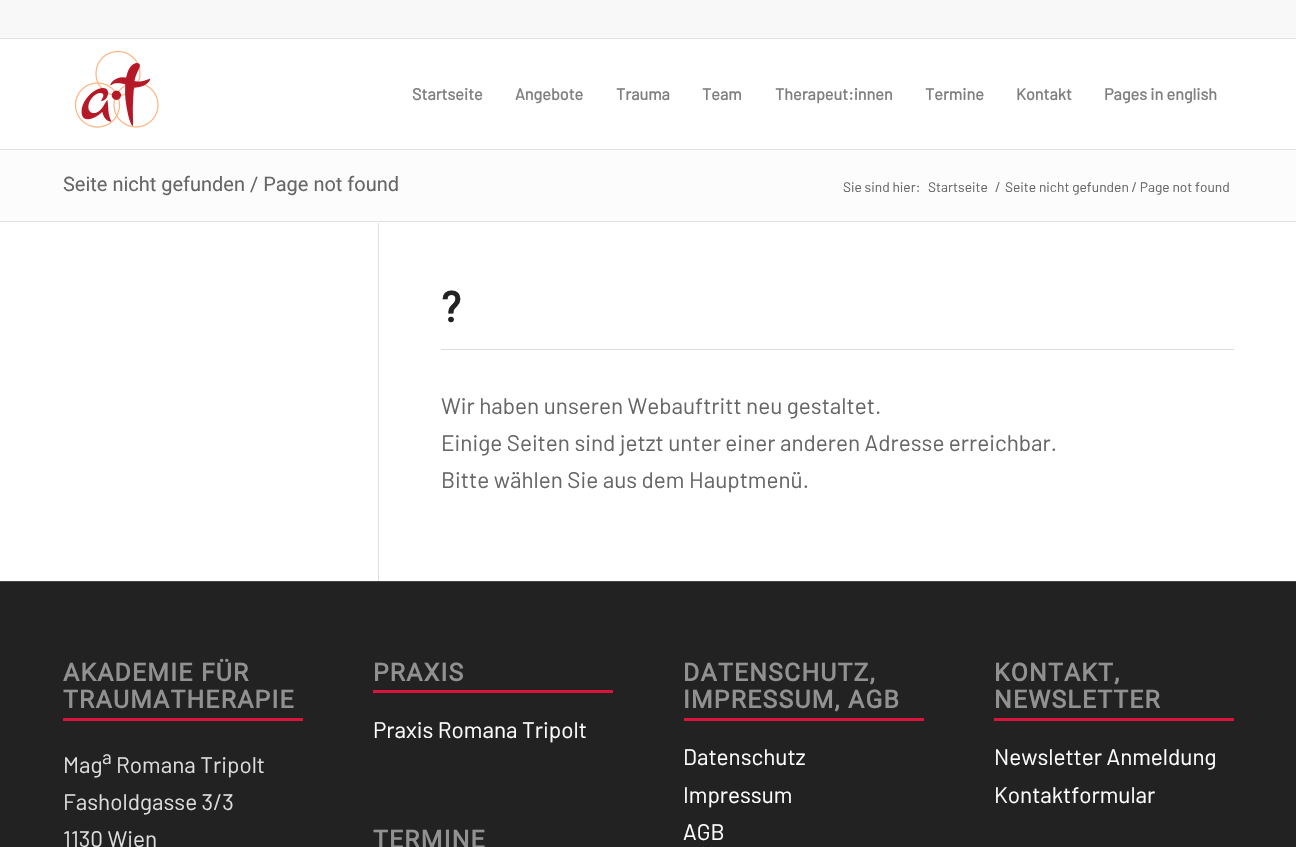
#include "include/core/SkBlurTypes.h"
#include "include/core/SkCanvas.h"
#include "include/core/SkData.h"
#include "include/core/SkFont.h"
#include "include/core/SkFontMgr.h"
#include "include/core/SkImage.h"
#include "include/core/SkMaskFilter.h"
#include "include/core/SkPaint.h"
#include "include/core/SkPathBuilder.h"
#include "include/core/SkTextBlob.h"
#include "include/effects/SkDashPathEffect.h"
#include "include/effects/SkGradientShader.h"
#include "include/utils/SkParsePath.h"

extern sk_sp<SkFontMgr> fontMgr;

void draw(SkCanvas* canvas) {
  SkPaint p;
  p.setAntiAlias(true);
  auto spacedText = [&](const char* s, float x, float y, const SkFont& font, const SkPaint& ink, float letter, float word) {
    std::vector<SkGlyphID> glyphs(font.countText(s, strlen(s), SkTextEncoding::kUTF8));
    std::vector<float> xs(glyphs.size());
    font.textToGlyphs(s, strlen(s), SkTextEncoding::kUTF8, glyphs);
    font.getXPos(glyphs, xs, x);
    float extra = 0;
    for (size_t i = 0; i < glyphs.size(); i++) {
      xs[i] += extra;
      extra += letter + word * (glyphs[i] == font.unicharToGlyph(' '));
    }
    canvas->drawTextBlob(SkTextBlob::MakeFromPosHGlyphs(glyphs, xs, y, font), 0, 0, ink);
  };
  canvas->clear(SK_ColorWHITE);
  p.setColor(SkColorSetRGB(248, 248, 248));
  canvas->drawRect(SkRect::MakeLTRB(0, 0, 1296, 38), p);
  p.setColor(SkColorSetRGB(225, 225, 225));
  canvas->drawRect(SkRect::MakeLTRB(0, 38, 1296, 39), p);
  canvas->drawRect(SkRect::MakeLTRB(0, 149, 1296, 150), p);
  canvas->drawImageRect(SkImages::DeferredFromEncodedData(SkData::MakeFromFileName("images/1.png")), SkRect::MakeLTRB(74, 50, 159, 128), SkSamplingOptions());
  p.setColor(SkColorSetRGB(252, 252, 252));
  canvas->drawRect(SkRect::MakeLTRB(0, 150, 1296, 221), p);
  p.setColor(SkColorSetRGB(225, 225, 225));
  canvas->drawRect(SkRect::MakeLTRB(0, 221, 1296, 222), p);
  canvas->drawRect(SkRect::MakeLTRB(378, 223, 379, 581), p);
  p.setColor(SkColorSetRGB(221, 221, 221));
  canvas->drawRect(SkRect::MakeLTRB(441, 349, 1234, 350), p);
  p.setColor(SkColorSetRGB(34, 34, 34));
  canvas->drawRect(SkRect::MakeLTRB(0, 582, 1296, 847), p);
  p.setColor(SkColorSetRGB(68, 68, 68));
  canvas->drawRect(SkRect::MakeLTRB(0, 581, 1296, 582), p);
  p.setColor(SkColorSetRGB(220, 20, 60));
  canvas->drawRect(SkRect::MakeLTRB(63, 718, 303, 721), p);
  canvas->drawRect(SkRect::MakeLTRB(373, 690, 613, 693), p);
  canvas->drawRect(SkRect::MakeLTRB(684, 718, 924, 721), p);
  canvas->drawRect(SkRect::MakeLTRB(994, 718, 1234, 721), p);
  SkFont font1(fontMgr->matchFamilyStyle("Barlow", SkFontStyle::Bold()), 16.25f);
  font1.setSubpixel(true);
  p.setColor(SkColorSetRGB(128, 128, 128));
  canvas->drawString("Startseite", 412, 100, font1, p);
  canvas->drawString("Angebote", 515, 100, font1, p);
  canvas->drawString("Trauma", 616, 100, font1, p);
  canvas->drawString("Team", 702, 100, font1, p);
  canvas->drawString("Therapeut:innen", 775, 100, font1, p);
  canvas->drawString("Termine", 925, 100, font1, p);
  canvas->drawString("Kontakt", 1016, 100, font1, p);
  canvas->drawString("Pages in english", 1104, 100, font1, p);
  SkFont font2(fontMgr->matchFamilyStyle("Roboto", SkFontStyle::Normal()), 20);
  font2.setSubpixel(true);
  p.setColor(SkColorSetRGB(102, 102, 102));
  canvas->drawString("Seite nicht gefunden / Page not found", 63, 191, font2, p);
  SkFont font3(fontMgr->matchFamilyStyle("Barlow", SkFontStyle::Normal()), 13.75f);
  font3.setSubpixel(true);
  canvas->drawString("Sie sind hier:", 843, 192, font3, p);
  canvas->drawString("Startseite", 928, 192, font3, p);
  canvas->drawString("/", 995, 192, font3, p);
  canvas->drawString("Seite nicht gefunden / Page not found", 1005, 192, font3, p);
  SkFont font4(fontMgr->matchFamilyStyle("Roboto", SkFontStyle::Bold()), 42);
  font4.setSubpixel(true);
  p.setColor(SkColorSetRGB(34, 34, 34));
  spacedText("?", 441, 322, font4, p, 1.25f, 0);
  SkFont font5(fontMgr->matchFamilyStyle("Barlow", SkFontStyle::Normal()), 22.5f);
  font5.setSubpixel(true);
  p.setColor(SkColorSetRGB(102, 102, 102));
  canvas->drawString("Wir haben unseren Webauftritt neu gestaltet.", 441, 414, font5, p);
  canvas->drawString("Einige Seiten sind jetzt unter einer anderen Adresse erreichbar.", 441, 451, font5, p);
  canvas->drawString("Bitte wählen Sie aus dem Hauptmenü.", 441, 488, font5, p);
  SkFont font6(fontMgr->matchFamilyStyle("Roboto", SkFontStyle::Bold()), 24.75f);
  font6.setSubpixel(true);
  p.setColor(SkColorSetRGB(145, 145, 145));
  spacedText("AKADEMIE FÜR", 63, 681, font6, p, 1.25f, 0);
  spacedText("TRAUMATHERAPIE", 63, 708, font6, p, 1.25f, 0);
  p.setColor(SkColorSetRGB(221, 221, 221));
  canvas->drawString("Mag", 63, 773, font5, p);
  SkFont font7(fontMgr->matchFamilyStyle("Barlow", SkFontStyle::Normal()), 19);
  font7.setSubpixel(true);
  canvas->drawString("a", 102, 764, font7, p);
  canvas->drawString("Romana Tripolt", 116, 773, font5, p);
  canvas->drawString("Fasholdgasse 3/3", 63, 810, font5, p);
  canvas->drawString("1130 Wien", 63, 847, font5, p);
  p.setColor(SkColorSetRGB(145, 145, 145));
  spacedText("PRAXIS", 373, 681, font6, p, 1.25f, 0);
  p.setColor(SK_ColorWHITE);
  canvas->drawString("Praxis Romana Tripolt", 373, 738, font5, p);
  p.setColor(SkColorSetRGB(145, 145, 145));
  spacedText("TERMINE", 373, 848, font6, p, 1.25f, 0);
  spacedText("DATENSCHUTZ,", 683, 681, font6, p, 1.25f, 0);
  spacedText("IMPRESSUM, AGB", 683, 708, font6, p, 1.25f, 0);
  p.setColor(SK_ColorWHITE);
  canvas->drawString("Datenschutz", 683, 765, font5, p);
  canvas->drawString("Impressum", 683, 803, font5, p);
  canvas->drawString("AGB", 683, 840, font5, p);
  p.setColor(SkColorSetRGB(145, 145, 145));
  spacedText("KONTAKT,", 994, 681, font6, p, 1.25f, 0);
  spacedText("NEWSLETTER", 994, 708, font6, p, 1.25f, 0);
  p.setColor(SK_ColorWHITE);
  canvas->drawString("Newsletter Anmeldung", 994, 765, font5, p);
  canvas->drawString("Kontaktformular", 994, 803, font5, p);
}
